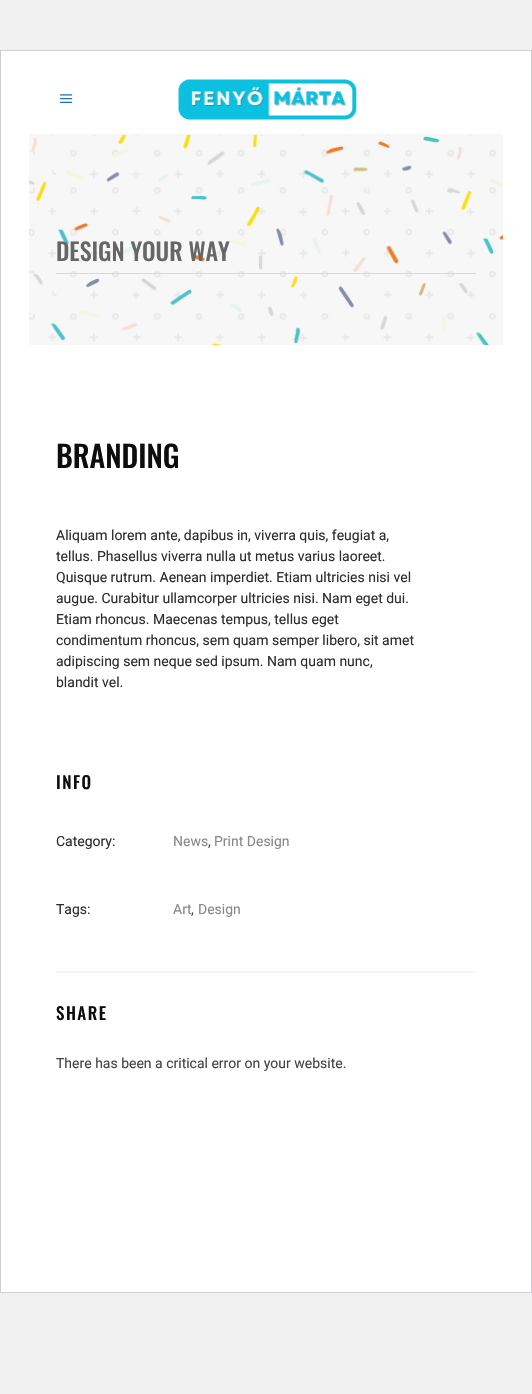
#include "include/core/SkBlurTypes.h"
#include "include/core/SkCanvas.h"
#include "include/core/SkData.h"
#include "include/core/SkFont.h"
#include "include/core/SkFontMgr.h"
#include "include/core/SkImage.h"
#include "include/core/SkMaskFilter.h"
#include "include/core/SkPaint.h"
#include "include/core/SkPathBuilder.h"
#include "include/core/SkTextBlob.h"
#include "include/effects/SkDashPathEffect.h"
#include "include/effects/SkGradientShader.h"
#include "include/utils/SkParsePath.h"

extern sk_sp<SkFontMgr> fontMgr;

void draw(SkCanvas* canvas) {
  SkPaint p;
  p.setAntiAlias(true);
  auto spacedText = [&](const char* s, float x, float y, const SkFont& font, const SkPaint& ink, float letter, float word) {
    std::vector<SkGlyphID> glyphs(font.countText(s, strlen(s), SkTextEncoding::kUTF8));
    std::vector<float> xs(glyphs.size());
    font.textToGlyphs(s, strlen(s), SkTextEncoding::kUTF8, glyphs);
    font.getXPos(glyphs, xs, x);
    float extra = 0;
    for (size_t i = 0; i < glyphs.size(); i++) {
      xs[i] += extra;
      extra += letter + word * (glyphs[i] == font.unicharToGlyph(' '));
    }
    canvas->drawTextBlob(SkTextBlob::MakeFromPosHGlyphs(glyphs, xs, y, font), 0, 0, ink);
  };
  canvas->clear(SkColorSetRGB(241, 241, 241));
  p.setColor(SK_ColorWHITE);
  canvas->drawRect(SkRect::MakeLTRB(0.5f, 50.5f, 531.5f, 1292.5f), p);
  p.setStyle(SkPaint::kStroke_Style);
  p.setStrokeWidth(1);
  p.setColor(SkColorSetRGB(204, 208, 212));
  canvas->drawRect(SkRect::MakeLTRB(0.5f, 50.5f, 531.5f, 1292.5f), p);
  p.setStyle(SkPaint::kFill_Style);
  p.setColor(SkColorSetRGB(245, 245, 245));
  canvas->drawRect(SkRect::MakeLTRB(29, 134, 503, 135), p);
  canvas->drawImageRect(SkImages::DeferredFromEncodedData(SkData::MakeFromFileName("images/1.png")), SkRect::MakeLTRB(59, 94, 73, 103), SkSamplingOptions());
  canvas->drawImageRect(SkImages::DeferredFromEncodedData(SkData::MakeFromFileName("images/2.png")), SkRect::MakeLTRB(178, 79, 357, 120), SkSamplingOptions());
  canvas->drawImageRect(SkImages::DeferredFromEncodedData(SkData::MakeFromFileName("images/3.png")), SkRect::MakeLTRB(29, 135, 503, 345), SkSamplingOptions());
  p.setColor(SkColorSetRGB(218, 218, 218));
  canvas->drawRect(SkRect::MakeLTRB(56, 273, 476, 274), p);
  p.setColor(SkColorSetRGB(245, 245, 245));
  canvas->drawRect(SkRect::MakeLTRB(56, 971, 476, 973), p);
  SkFont font1(fontMgr->matchFamilyStyle("Oswald", SkFontStyle(500, SkFontStyle::kNormal_Width, SkFontStyle::kUpright_Slant)), 24);
  font1.setSubpixel(true);
  p.setColor(SkColorSetRGB(102, 102, 102));
  canvas->drawString("DESIGN YOUR WAY", 56, 261, font1, p);
  SkFont font2(fontMgr->matchFamilyStyle("Oswald", SkFontStyle(500, SkFontStyle::kNormal_Width, SkFontStyle::kUpright_Slant)), 30);
  font2.setSubpixel(true);
  p.setColor(SkColorSetRGB(13, 13, 13));
  canvas->drawString("BRANDING", 56, 468, font2, p);
  SkFont font3(fontMgr->matchFamilyStyle("Roboto", SkFontStyle::Normal()), 14);
  font3.setSubpixel(true);
  p.setColor(SkColorSetRGB(45, 45, 45));
  canvas->drawString("Aliquam lorem ante, dapibus in, viverra quis, feugiat a,", 56, 540, font3, p);
  canvas->drawString("tellus. Phasellus viverra nulla ut metus varius laoreet.", 56, 561, font3, p);
  canvas->drawString("Quisque rutrum. Aenean imperdiet. Etiam ultricies nisi vel", 56, 582, font3, p);
  canvas->drawString("augue. Curabitur ullamcorper ultricies nisi. Nam eget dui.", 56, 603, font3, p);
  canvas->drawString("Etiam rhoncus. Maecenas tempus, tellus eget", 56, 624, font3, p);
  canvas->drawString("condimentum rhoncus, sem quam semper libero, sit amet", 56, 645, font3, p);
  canvas->drawString("adipiscing sem neque sed ipsum. Nam quam nunc,", 56, 666, font3, p);
  canvas->drawString("blandit vel.", 56, 687, font3, p);
  SkFont font4(fontMgr->matchFamilyStyle("Oswald", SkFontStyle(500, SkFontStyle::kNormal_Width, SkFontStyle::kUpright_Slant)), 17);
  font4.setSubpixel(true);
  p.setColor(SkColorSetRGB(13, 13, 13));
  spacedText("INFO", 56, 789, font4, p, 1.5f, 0);
  p.setColor(SkColorSetRGB(45, 45, 45));
  canvas->drawString("Category:", 56, 846, font3, p);
  p.setColor(SkColorSetRGB(136, 136, 136));
  canvas->drawString("News", 173, 846, font3, p);
  p.setColor(SkColorSetRGB(68, 68, 68));
  canvas->drawString(",", 208, 846, font3, p);
  p.setColor(SkColorSetRGB(136, 136, 136));
  canvas->drawString("Print Design", 214, 846, font3, p);
  p.setColor(SkColorSetRGB(45, 45, 45));
  canvas->drawString("Tags:", 56, 914, font3, p);
  p.setColor(SkColorSetRGB(136, 136, 136));
  canvas->drawString("Art", 173, 914, font3, p);
  p.setColor(SkColorSetRGB(68, 68, 68));
  canvas->drawString(",", 191, 914, font3, p);
  p.setColor(SkColorSetRGB(136, 136, 136));
  canvas->drawString("Design", 198, 914, font3, p);
  p.setColor(SkColorSetRGB(13, 13, 13));
  spacedText("SHARE", 56, 1020, font4, p, 1.5f, 0);
  p.setColor(SkColorSetRGB(68, 68, 68));
  canvas->drawString("There has been a critical error on your website.", 56, 1068, font3, p);
}
